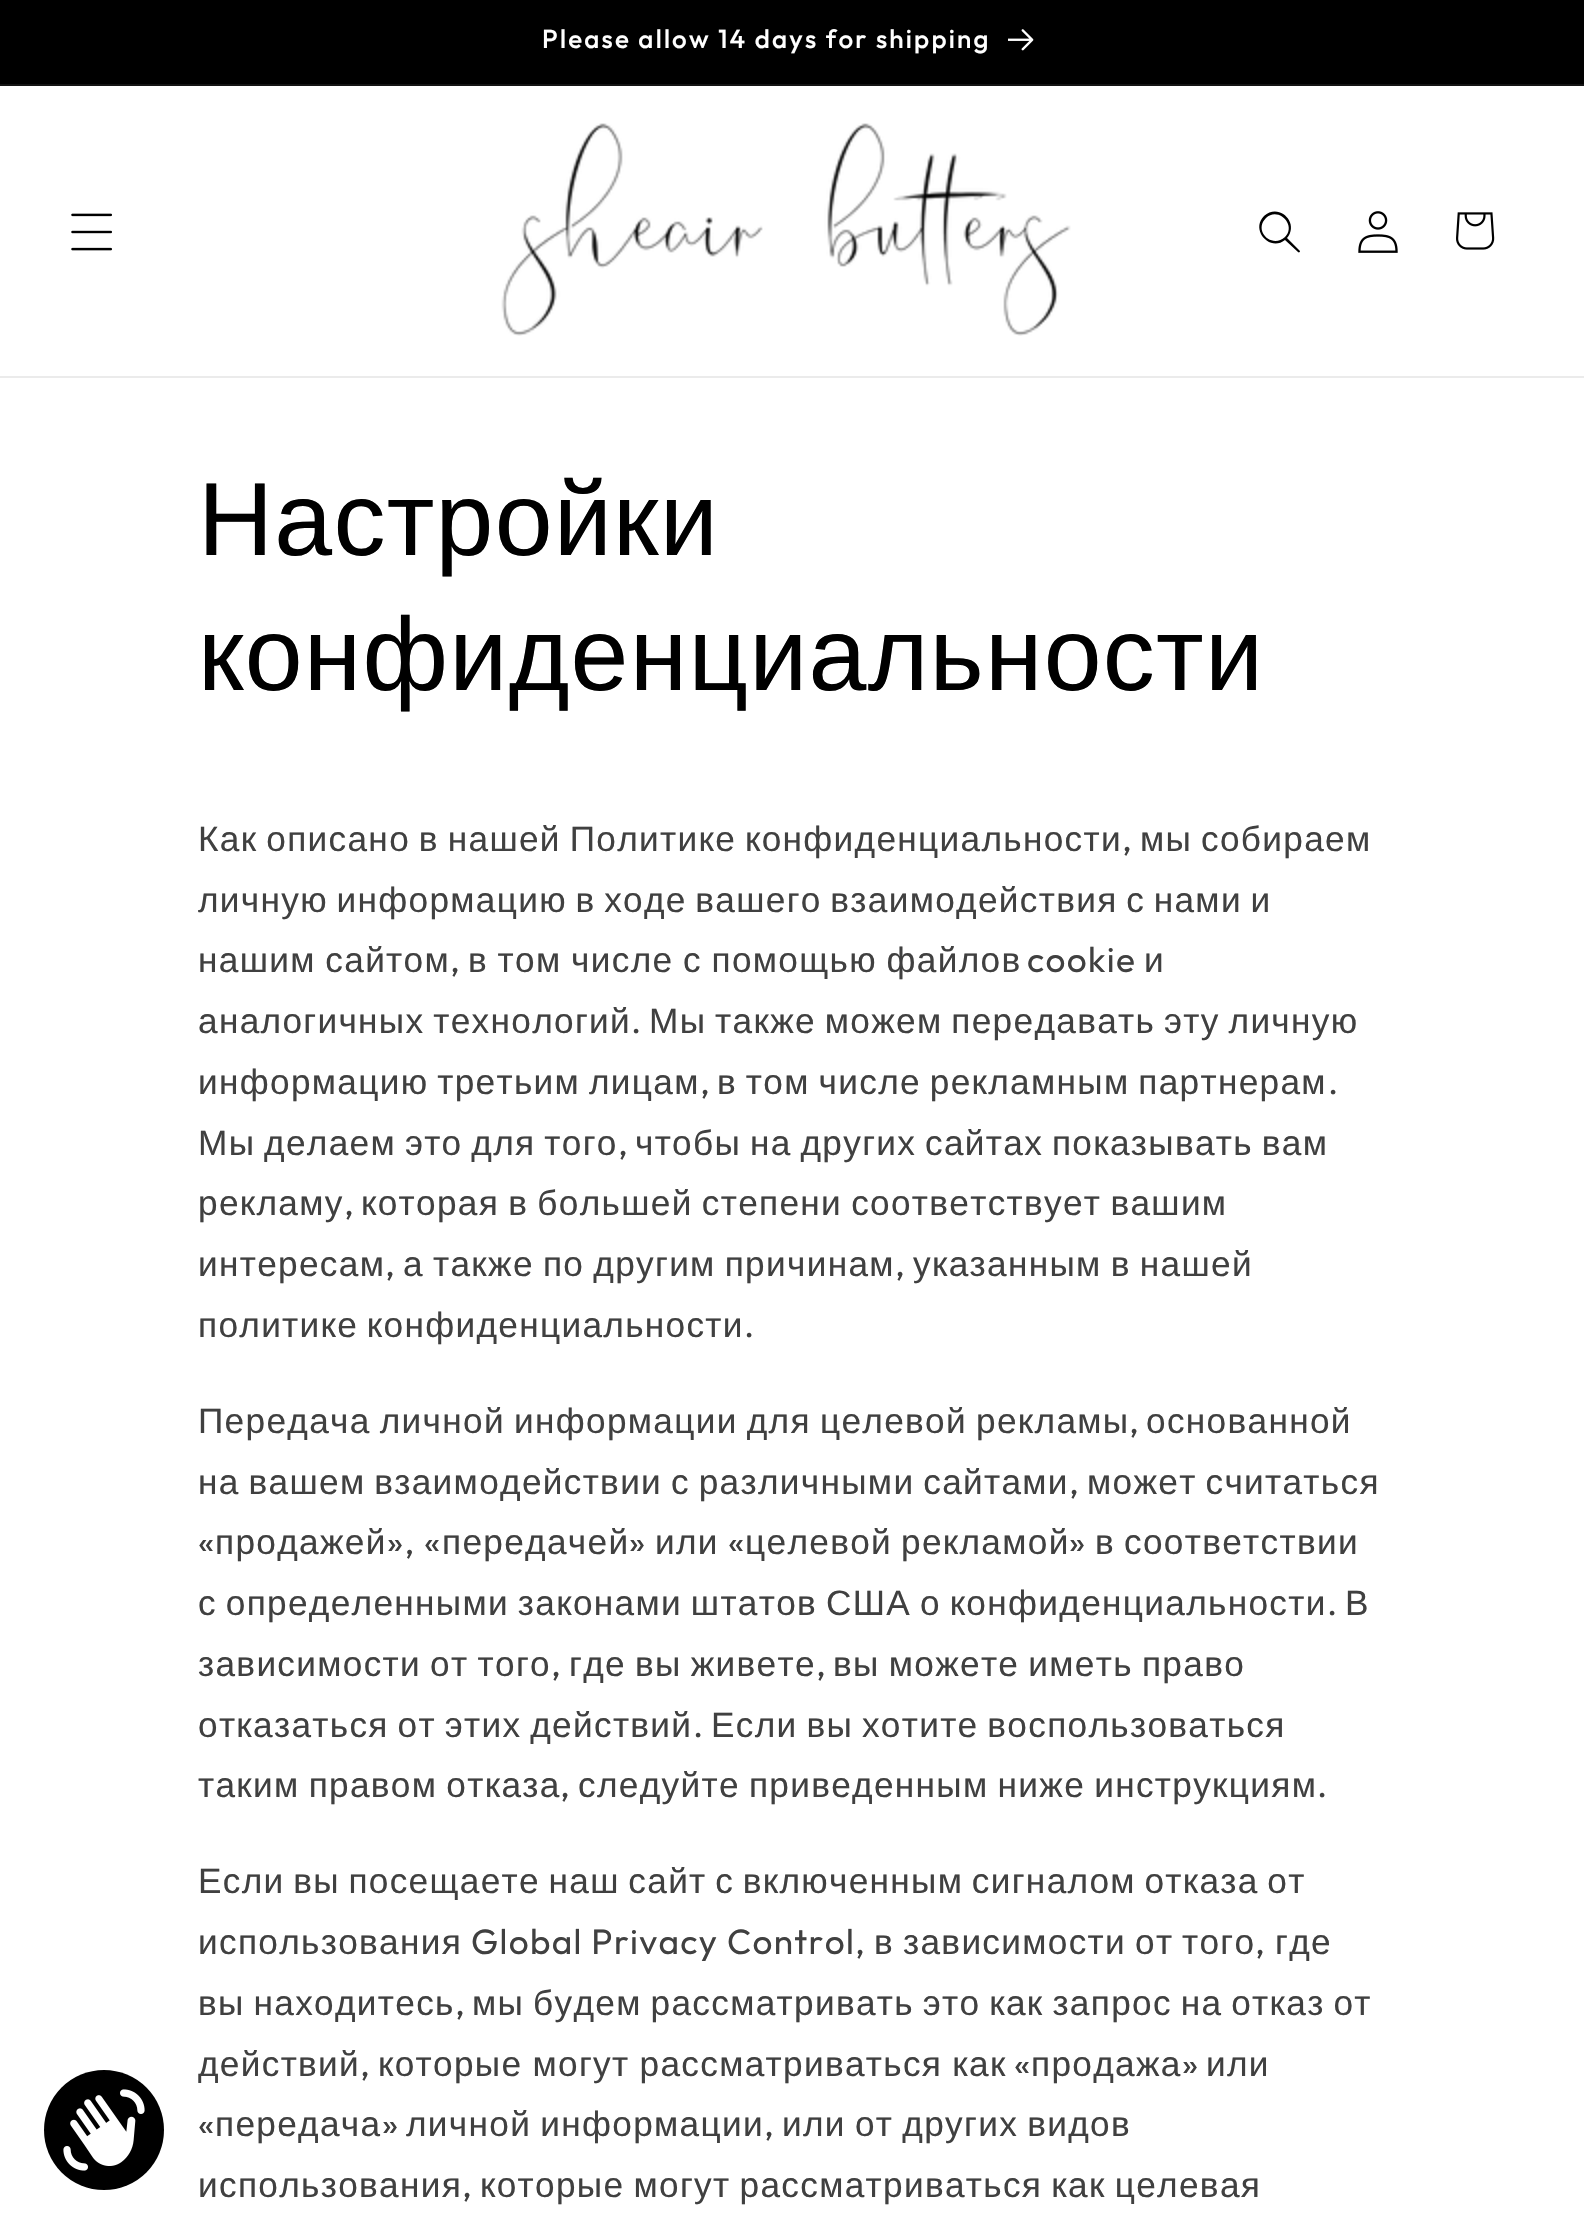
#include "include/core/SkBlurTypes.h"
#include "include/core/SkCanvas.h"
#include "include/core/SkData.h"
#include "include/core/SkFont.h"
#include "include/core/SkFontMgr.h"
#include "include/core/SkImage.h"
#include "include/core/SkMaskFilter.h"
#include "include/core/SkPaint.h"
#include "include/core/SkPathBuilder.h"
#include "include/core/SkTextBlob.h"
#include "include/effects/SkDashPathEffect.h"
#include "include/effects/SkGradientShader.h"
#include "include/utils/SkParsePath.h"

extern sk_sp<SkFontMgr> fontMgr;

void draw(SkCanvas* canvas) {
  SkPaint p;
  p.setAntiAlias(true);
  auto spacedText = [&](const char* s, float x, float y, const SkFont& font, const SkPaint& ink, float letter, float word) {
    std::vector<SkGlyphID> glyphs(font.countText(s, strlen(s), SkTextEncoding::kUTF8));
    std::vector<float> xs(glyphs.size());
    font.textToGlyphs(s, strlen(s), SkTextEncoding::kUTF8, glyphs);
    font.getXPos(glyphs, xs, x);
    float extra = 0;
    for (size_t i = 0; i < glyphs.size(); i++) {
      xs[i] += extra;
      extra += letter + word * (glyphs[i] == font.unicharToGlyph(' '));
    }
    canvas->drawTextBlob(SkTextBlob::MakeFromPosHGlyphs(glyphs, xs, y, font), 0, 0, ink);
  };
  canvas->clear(SK_ColorWHITE);
  p.setColor(SK_ColorBLACK);
  canvas->drawRect(SkRect::MakeLTRB(0, 0, 1584, 84), p);
  p.setColor(SkColorSetRGB(20, 20, 20));
  canvas->drawRect(SkRect::MakeLTRB(0, 84, 1584, 86), p);
  canvas->drawImageRect(SkImages::DeferredFromEncodedData(SkData::MakeFromFileName("images/1.png")), SkRect::MakeLTRB(1008, 29, 1034, 51), SkSamplingOptions());
  p.setColor(SkColorSetRGB(235, 235, 235));
  canvas->drawRect(SkRect::MakeLTRB(0, 376, 1584, 378), p);
  canvas->drawImageRect(SkImages::DeferredFromEncodedData(SkData::MakeFromFileName("images/2.png")), SkRect::MakeLTRB(71, 213, 112, 251), SkSamplingOptions());
  canvas->drawImageRect(SkImages::DeferredFromEncodedData(SkData::MakeFromFileName("images/3.png")), SkRect::MakeLTRB(501, 123, 1071, 336), SkSamplingOptions());
  p.setColor(SK_ColorBLACK);
  canvas->drawPath(SkPathBuilder(SkPathFillType::kEvenOdd).moveTo(1285, 237).cubicTo(1272, 249, 1253, 231, 1266, 218).cubicTo(1278, 206, 1297, 225, 1285, 237).moveTo(1285, 240).cubicTo(1270, 252, 1250, 230, 1264, 216).cubicTo(1279, 202, 1300, 223, 1287, 238).lineTo(1300, 251).cubicTo(1300, 252, 1299, 253, 1298, 252).close().detach(), p);
  canvas->drawImageRect(SkImages::DeferredFromEncodedData(SkData::MakeFromFileName("images/4.png")), SkRect::MakeLTRB(1358, 211, 1398, 253), SkSamplingOptions());
  canvas->drawImageRect(SkImages::DeferredFromEncodedData(SkData::MakeFromFileName("images/5.png")), SkRect::MakeLTRB(1456, 212, 1495, 250), SkSamplingOptions());
  canvas->drawCircle(104, 2130, 60, p);
  canvas->drawImageRect(SkImages::DeferredFromEncodedData(SkData::MakeFromFileName("images/6.png")), SkRect::MakeLTRB(63, 2089, 145, 2171), SkSamplingOptions());
  SkFont font1(fontMgr->matchFamilyStyle("Outfit", SkFontStyle(500, SkFontStyle::kNormal_Width, SkFontStyle::kUpright_Slant)), 26);
  font1.setSubpixel(true);
  p.setColor(SK_ColorWHITE);
  spacedText("Please allow 14 days for shipping", 542, 48, font1, p, 2.2f, 0);
  SkFont font2(fontMgr->matchFamilyStyle("Liberation Sans", SkFontStyle::Normal()), 104);
  font2.setSubpixel(true);
  p.setColor(SK_ColorBLACK);
  spacedText("Настройки", 198, 555, font2, p, 1.25f, 0);
  spacedText("конфиденциальности", 198, 690, font2, p, 1.25f, 0);
  SkFont font3(fontMgr->matchFamilyStyle("Liberation Sans", SkFontStyle::Normal()), 35.2f);
  font3.setSubpixel(true);
  p.setColor(SkColorSetRGB(64, 64, 64));
  spacedText("Как описано в нашей Политике конфиденциальности", 198, 851, font3, p, 1.32f, -2.25f);
  SkFont font4(fontMgr->matchFamilyStyle("Outfit", SkFontStyle::Normal()), 35.2f);
  font4.setSubpixel(true);
  spacedText(",", 1122, 851, font4, p, 1.32f, 0);
  spacedText("мы собираем", 1140, 851, font3, p, 1.32f, -2.25f);
  spacedText("личную информацию в ходе вашего взаимодействия с нами и", 198, 912, font3, p, 1.32f, -2.5f);
  spacedText("нашим сайтом", 198, 972, font3, p, 1.32f, -1.5f);
  spacedText(",", 450, 972, font4, p, 1.32f, 0);
  spacedText("в том числе с помощью файлов", 468, 972, font3, p, 1.32f, -1.5f);
  spacedText("cookie", 1027, 972, font4, p, 1.32f, 0);
  spacedText("и", 1144, 972, font3, p, 1.32f, 0);
  spacedText("аналогичных технологий", 198, 1033, font3, p, 1.32f, -2.25f);
  spacedText(".", 631, 1033, font4, p, 1.32f, 0);
  spacedText("Мы также можем передавать эту личную", 649, 1033, font3, p, 1.32f, -2.25f);
  spacedText("информацию третьим лицам", 198, 1094, font3, p, 1.32f, -2.25f);
  spacedText(",", 700, 1094, font4, p, 1.32f, 0);
  spacedText("в том числе рекламным партнерам", 717, 1094, font3, p, 1.32f, -2.25f);
  spacedText(".", 1328, 1094, font4, p, 1.32f, 0);
  spacedText("Мы делаем это для того", 198, 1155, font3, p, 1.32f, -2.25f);
  spacedText(",", 618, 1155, font4, p, 1.32f, 0);
  spacedText("чтобы на других сайтах показывать вам", 635, 1155, font3, p, 1.32f, -2.25f);
  spacedText("рекламу", 198, 1215, font3, p, 1.32f, 0);
  spacedText(",", 344, 1215, font4, p, 1.32f, 0);
  spacedText("которая в большей степени соответствует вашим", 361, 1215, font3, p, 1.32f, -2);
  spacedText("интересам", 198, 1276, font3, p, 1.32f, 0);
  spacedText(",", 385, 1276, font4, p, 1.32f, 0);
  spacedText("а также по другим причинам", 403, 1276, font3, p, 1.32f, -2);
  spacedText(",", 895, 1276, font4, p, 1.32f, 0);
  spacedText("указанным в нашей", 913, 1276, font3, p, 1.32f, -2);
  spacedText("политике конфиденциальности", 198, 1337, font3, p, 1.32f, -2.5f);
  spacedText(".", 744, 1337, font4, p, 1.32f, 0);
  spacedText("Передача личной информации для целевой рекламы", 198, 1433, font3, p, 1.32f, -2);
  spacedText(",", 1129, 1433, font4, p, 1.32f, 0);
  spacedText("основанной", 1146, 1433, font3, p, 1.32f, 0);
  spacedText("на вашем взаимодействии с различными сайтами", 198, 1494, font3, p, 1.32f, -2.25f);
  spacedText(",", 1069, 1494, font4, p, 1.32f, 0);
  spacedText("может считаться", 1087, 1494, font3, p, 1.32f, -2.25f);
  spacedText("«", 198, 1554, font4, p, 1.32f, 0);
  spacedText("продажей", 215, 1554, font3, p, 1.32f, 0);
  spacedText("», «", 387, 1554, font4, p, 1.32f, 0);
  spacedText("передачей", 442, 1554, font3, p, 1.32f, 0);
  spacedText("»", 629, 1554, font4, p, 1.32f, 0);
  spacedText("или", 655, 1554, font3, p, 1.32f, 0);
  spacedText("«", 728, 1554, font4, p, 1.32f, 0);
  spacedText("целевой", 745, 1554, font3, p, 1.32f, 0);
  spacedText("рекламой", 901, 1554, font3, p, 1.32f, 0);
  spacedText("»", 1069, 1554, font4, p, 1.32f, 0);
  spacedText("в", 1095, 1554, font3, p, 1.32f, 0);
  spacedText("соответствии", 1124, 1554, font3, p, 1.32f, 0);
  spacedText("с определенными законами штатов США о конфиденциальности", 198, 1615, font3, p, 1.32f, -2.25f);
  spacedText(".", 1327, 1615, font4, p, 1.32f, 0);
  spacedText("В", 1345, 1615, font3, p, 1.32f, 0);
  spacedText("зависимости от того", 198, 1676, font3, p, 1.32f, -2);
  spacedText(",", 551, 1676, font4, p, 1.32f, 0);
  spacedText("где вы живете", 569, 1676, font3, p, 1.32f, -2);
  spacedText(",", 816, 1676, font4, p, 1.32f, 0);
  spacedText("вы можете иметь право", 833, 1676, font3, p, 1.32f, -2);
  spacedText("отказаться от этих действий", 198, 1737, font3, p, 1.32f, -2.25f);
  spacedText(".", 693, 1737, font4, p, 1.32f, 0);
  spacedText("Если вы хотите воспользоваться", 711, 1737, font3, p, 1.32f, -2.25f);
  spacedText("таким правом отказа", 198, 1797, font3, p, 1.32f, -2);
  spacedText(",", 560, 1797, font4, p, 1.32f, 0);
  spacedText("следуйте приведенным ниже инструкциям", 578, 1797, font3, p, 1.32f, -2);
  spacedText(".", 1317, 1797, font4, p, 1.32f, 0);
  spacedText("Если вы посещаете наш сайт с включенным сигналом отказа от", 198, 1893, font3, p, 1.32f, -2.5f);
  spacedText("использования", 198, 1954, font3, p, 1.32f, 0);
  spacedText("Global Privacy Control,", 471, 1954, font4, p, 1.32f, 0);
  spacedText("в", 874, 1954, font3, p, 1.32f, 0);
  spacedText("зависимости", 903, 1954, font3, p, 1.32f, 0);
  spacedText("от", 1135, 1954, font3, p, 1.32f, 0);
  spacedText("того", 1182, 1954, font3, p, 1.32f, 0);
  spacedText(",", 1255, 1954, font4, p, 1.32f, 0);
  spacedText("где", 1275, 1954, font3, p, 1.32f, 0);
  spacedText("вы находитесь", 198, 2015, font3, p, 1.32f, -2.25f);
  spacedText(",", 455, 2015, font4, p, 1.32f, 0);
  spacedText("мы будем рассматривать это как запрос на отказ от", 472, 2015, font3, p, 1.32f, -2.25f);
  spacedText("действий", 198, 2076, font3, p, 1.32f, 0);
  spacedText("которые могут рассматриваться как", 378, 2076, font3, p, 1.32f, -1);
  spacedText("«", 1014, 2076, font4, p, 1.32f, 0);
  spacedText("продажа", 1031, 2076, font3, p, 1.32f, 0);
  spacedText("»", 1182, 2076, font4, p, 1.32f, 0);
  spacedText("или", 1206, 2076, font3, p, 1.32f, 0);
  spacedText(",", 360, 2076, font4, p, 1.32f, 0);
  spacedText("«", 198, 2136, font4, p, 1.32f, 0);
  spacedText("передача", 215, 2136, font3, p, 1.32f, 0);
  spacedText("»", 382, 2136, font4, p, 1.32f, 0);
  spacedText("личной информации", 406, 2136, font3, p, 1.32f, -2);
  spacedText("или от других видов", 782, 2136, font3, p, 1.32f, -2);
  spacedText(",", 764, 2136, font4, p, 1.32f, 0);
  spacedText("использования", 198, 2197, font3, p, 1.32f, 0);
  spacedText(",", 462, 2197, font4, p, 1.32f, 0);
  spacedText("которые могут рассматриваться как целевая", 480, 2197, font3, p, 1.32f, -2);
}
